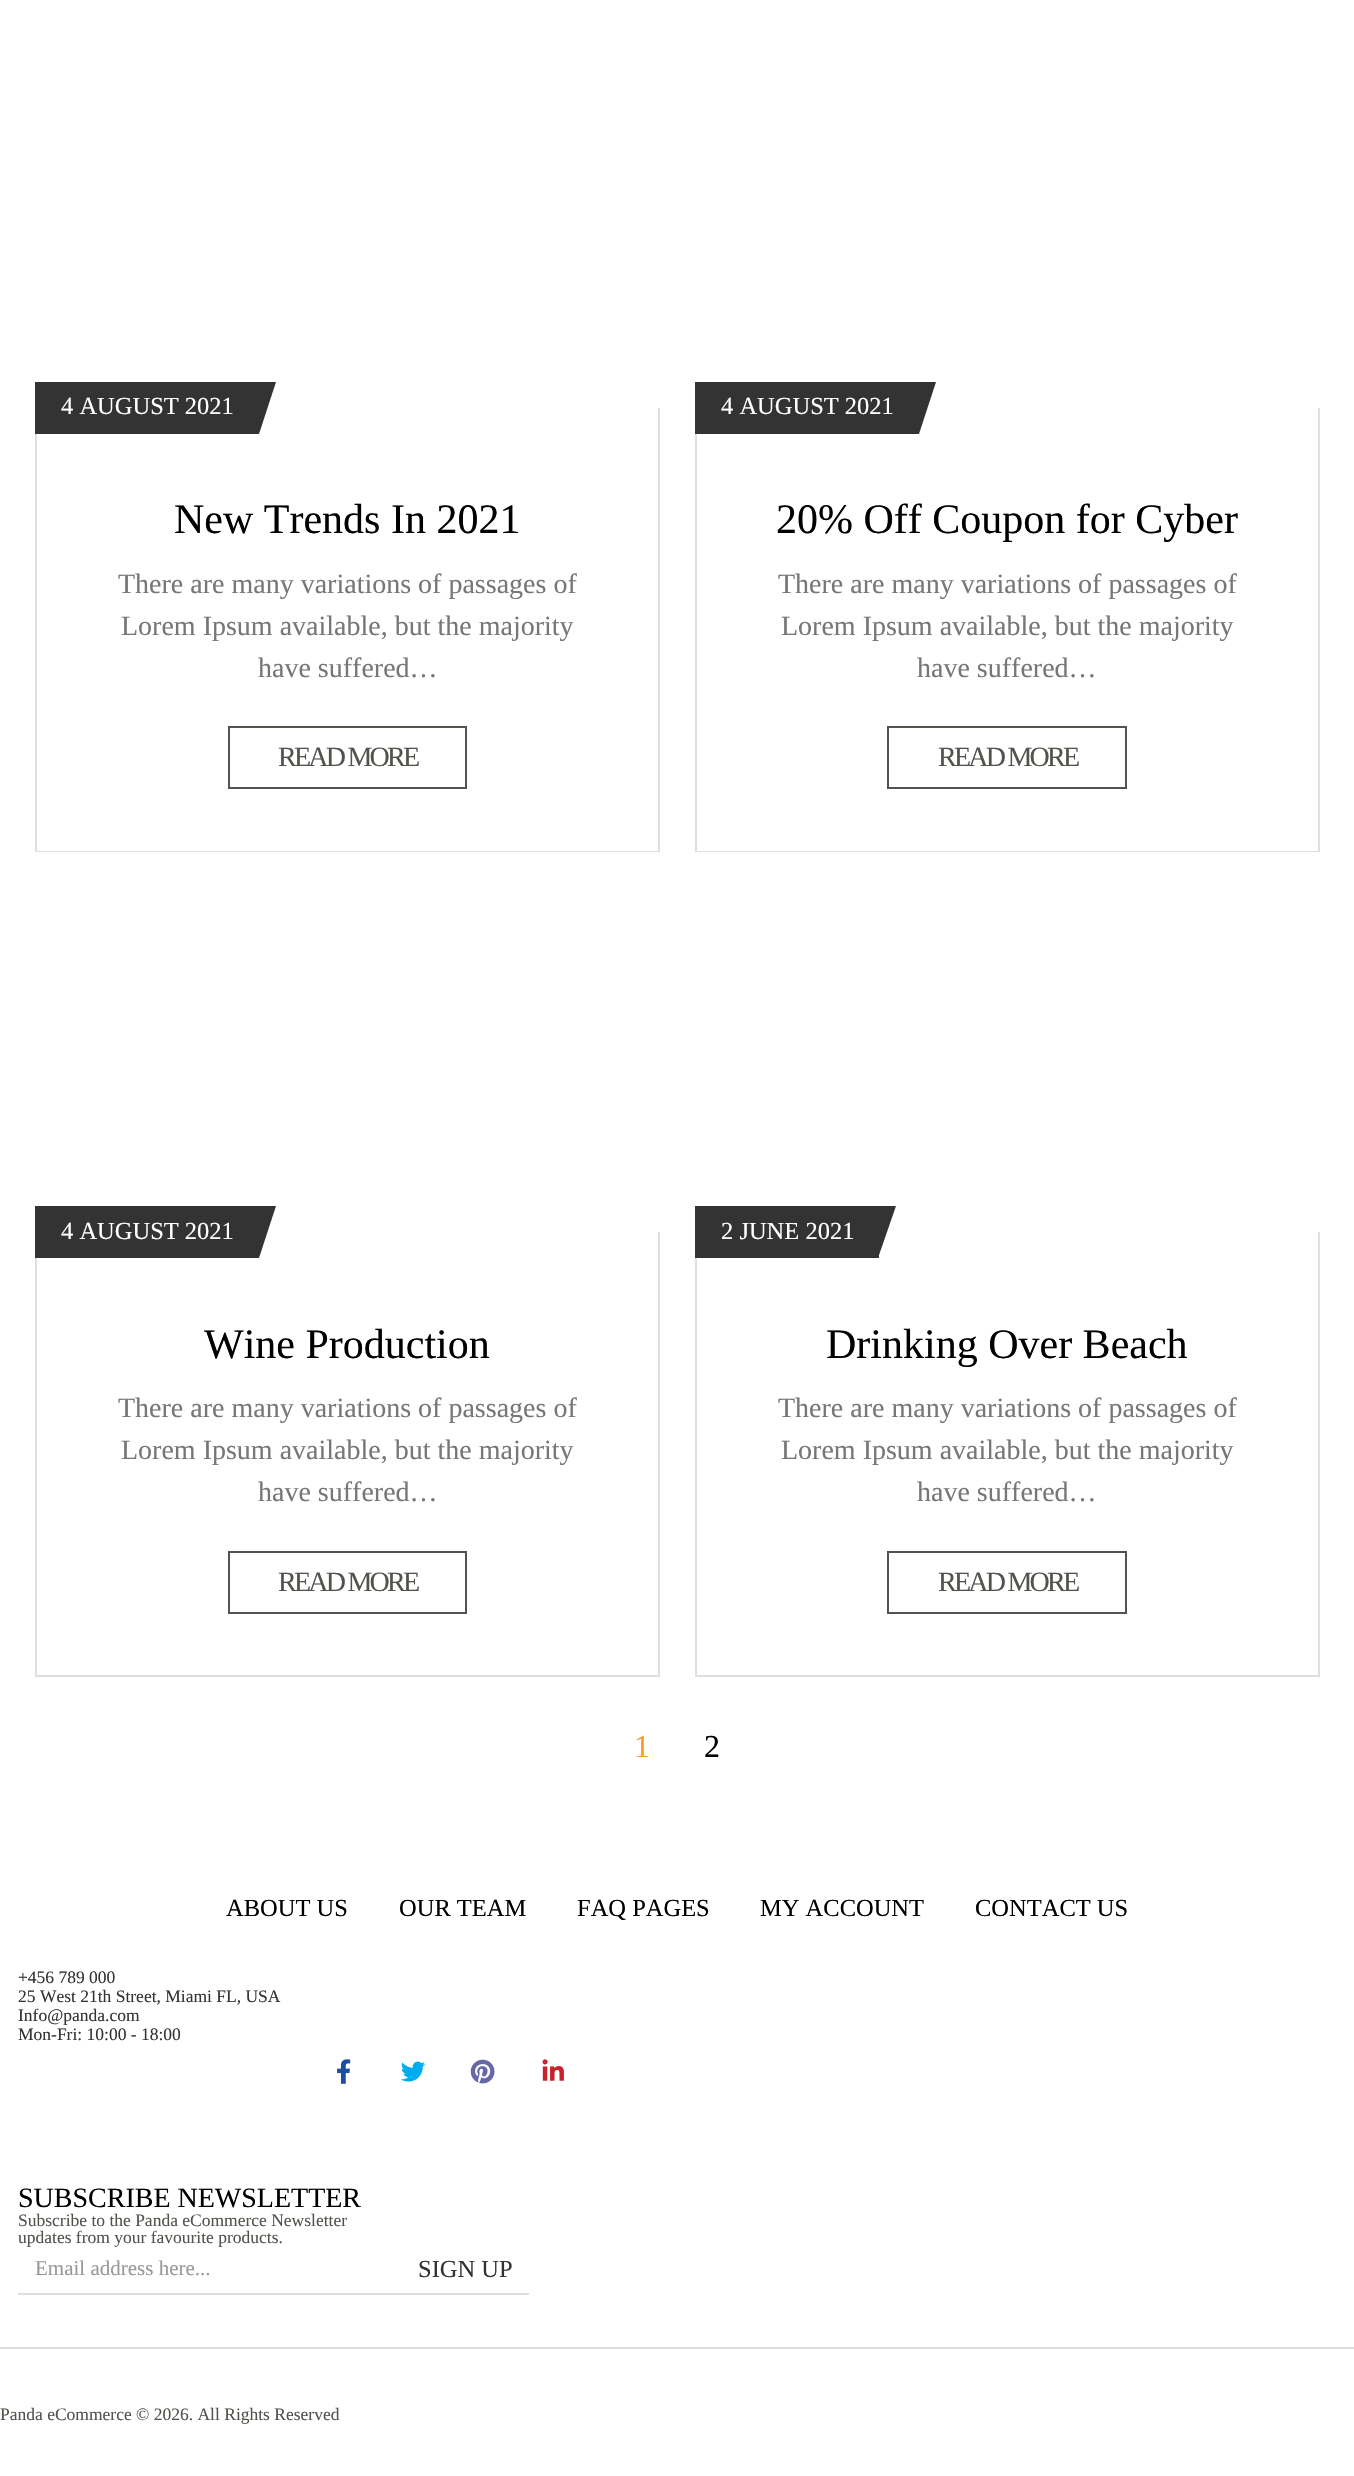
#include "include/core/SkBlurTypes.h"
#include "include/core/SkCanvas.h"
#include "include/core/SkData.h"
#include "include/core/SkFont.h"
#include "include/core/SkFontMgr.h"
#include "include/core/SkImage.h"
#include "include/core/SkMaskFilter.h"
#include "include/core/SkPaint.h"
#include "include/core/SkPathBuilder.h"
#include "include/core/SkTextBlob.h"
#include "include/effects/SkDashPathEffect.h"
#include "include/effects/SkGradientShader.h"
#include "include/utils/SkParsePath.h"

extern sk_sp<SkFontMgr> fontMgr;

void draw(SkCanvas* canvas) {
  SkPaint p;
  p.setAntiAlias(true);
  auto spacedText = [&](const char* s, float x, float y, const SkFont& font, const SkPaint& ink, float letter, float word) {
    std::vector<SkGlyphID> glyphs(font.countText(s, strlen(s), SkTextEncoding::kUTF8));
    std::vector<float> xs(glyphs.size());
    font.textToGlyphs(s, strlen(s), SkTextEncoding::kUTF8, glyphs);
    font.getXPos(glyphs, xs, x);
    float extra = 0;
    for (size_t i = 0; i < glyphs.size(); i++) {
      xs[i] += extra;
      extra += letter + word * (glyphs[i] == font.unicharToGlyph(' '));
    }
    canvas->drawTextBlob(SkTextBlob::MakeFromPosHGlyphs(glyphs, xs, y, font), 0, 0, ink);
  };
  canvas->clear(SK_ColorWHITE);
  p.setColor(SkColorSetRGB(224, 222, 223));
  canvas->drawRect(SkRect::MakeLTRB(658, 408, 660, 852), p);
  canvas->drawRect(SkRect::MakeLTRB(35, 851, 660, 852), p);
  canvas->drawRect(SkRect::MakeLTRB(35, 434, 37, 852), p);
  p.setColor(SkColorSetRGB(51, 51, 51));
  canvas->drawRect(SkRect::MakeLTRB(35, 382, 259, 434), p);
  canvas->drawPath(SkPathBuilder().moveTo(259, 434).lineTo(259, 382).lineTo(276, 382).close().detach(), p);
  p.setStyle(SkPaint::kStroke_Style);
  p.setStrokeWidth(2);
  p.setColor(SkColorSetRGB(84, 82, 77));
  canvas->drawRect(SkRect::MakeLTRB(229, 727, 466, 788), p);
  p.setStyle(SkPaint::kFill_Style);
  p.setColor(SkColorSetRGB(224, 222, 223));
  canvas->drawRect(SkRect::MakeLTRB(1318, 408, 1320, 852), p);
  canvas->drawRect(SkRect::MakeLTRB(695, 851, 1320, 852), p);
  canvas->drawRect(SkRect::MakeLTRB(695, 434, 697, 852), p);
  p.setColor(SkColorSetRGB(51, 51, 51));
  canvas->drawRect(SkRect::MakeLTRB(695, 382, 919, 434), p);
  canvas->drawPath(SkPathBuilder().moveTo(919, 434).lineTo(919, 382).lineTo(936, 382).close().detach(), p);
  p.setStyle(SkPaint::kStroke_Style);
  p.setColor(SkColorSetRGB(84, 82, 77));
  canvas->drawRect(SkRect::MakeLTRB(888, 727, 1126, 788), p);
  p.setStyle(SkPaint::kFill_Style);
  p.setColor(SkColorSetRGB(224, 222, 223));
  canvas->drawRect(SkRect::MakeLTRB(658, 1232, 660, 1677), p);
  canvas->drawRect(SkRect::MakeLTRB(35, 1675, 660, 1677), p);
  canvas->drawRect(SkRect::MakeLTRB(35, 1258, 37, 1677), p);
  p.setColor(SkColorSetRGB(51, 51, 51));
  canvas->drawRect(SkRect::MakeLTRB(35, 1206, 259, 1258), p);
  canvas->drawPath(SkPathBuilder().moveTo(259, 1258).lineTo(259, 1206).lineTo(276, 1206).close().detach(), p);
  p.setStyle(SkPaint::kStroke_Style);
  p.setColor(SkColorSetRGB(84, 82, 77));
  canvas->drawRect(SkRect::MakeLTRB(229, 1552, 466, 1613), p);
  p.setStyle(SkPaint::kFill_Style);
  p.setColor(SkColorSetRGB(224, 222, 223));
  canvas->drawRect(SkRect::MakeLTRB(1318, 1232, 1320, 1677), p);
  canvas->drawRect(SkRect::MakeLTRB(695, 1675, 1320, 1677), p);
  canvas->drawRect(SkRect::MakeLTRB(695, 1258, 697, 1677), p);
  p.setColor(SkColorSetRGB(51, 51, 51));
  canvas->drawRect(SkRect::MakeLTRB(695, 1206, 879, 1258), p);
  canvas->drawPath(SkPathBuilder().moveTo(878, 1258).lineTo(878, 1206).lineTo(896, 1206).close().detach(), p);
  p.setStyle(SkPaint::kStroke_Style);
  p.setColor(SkColorSetRGB(84, 82, 77));
  canvas->drawRect(SkRect::MakeLTRB(888, 1552, 1126, 1613), p);
  canvas->drawImageRect(SkImages::DeferredFromEncodedData(SkData::MakeFromFileName("images/1.png")), SkRect::MakeLTRB(337, 2059, 351, 2084), SkSamplingOptions());
  canvas->drawImageRect(SkImages::DeferredFromEncodedData(SkData::MakeFromFileName("images/2.png")), SkRect::MakeLTRB(401, 2061, 426, 2082), SkSamplingOptions());
  canvas->drawImageRect(SkImages::DeferredFromEncodedData(SkData::MakeFromFileName("images/3.png")), SkRect::MakeLTRB(470, 2059, 495, 2084), SkSamplingOptions());
  canvas->drawImageRect(SkImages::DeferredFromEncodedData(SkData::MakeFromFileName("images/4.png")), SkRect::MakeLTRB(542, 2059, 564, 2081), SkSamplingOptions());
  p.setStyle(SkPaint::kFill_Style);
  p.setColor(SkColorSetRGB(224, 222, 222));
  canvas->drawRect(SkRect::MakeLTRB(18, 2293, 529, 2295), p);
  canvas->drawRect(SkRect::MakeLTRB(0, 2347, 1354, 2349), p);
  SkFont font1(fontMgr->matchFamilyStyle("Liberation Serif", SkFontStyle::Normal()), 24.5f);
  font1.setSubpixel(true);
  p.setColor(SK_ColorWHITE);
  canvas->drawString("4 AUGUST 2021", 61, 414, font1, p);
  SkFont font2(fontMgr->matchFamilyStyle("Liberation Serif", SkFontStyle::Normal()), 42);
  font2.setSubpixel(true);
  p.setColor(SK_ColorBLACK);
  canvas->drawString("New Trends In 2021", 174, 533, font2, p);
  SkFont font3(fontMgr->matchFamilyStyle("Liberation Serif", SkFontStyle::Normal()), 28);
  font3.setSubpixel(true);
  p.setColor(SkColorSetRGB(119, 119, 119));
  canvas->drawString("There are many variations of passages of", 118, 593, font3, p);
  canvas->drawString("Lorem Ipsum available, but the majority", 121, 635, font3, p);
  canvas->drawString("have suffered…", 258, 677, font3, p);
  p.setColor(SkColorSetRGB(84, 82, 77));
  spacedText("READ MORE", 278, 766, font3, p, -2.75f, 0);
  p.setColor(SK_ColorWHITE);
  canvas->drawString("4 AUGUST 2021", 721, 414, font1, p);
  p.setColor(SK_ColorBLACK);
  canvas->drawString("20% Off Coupon for Cyber", 776, 533, font2, p);
  p.setColor(SkColorSetRGB(119, 119, 119));
  canvas->drawString("There are many variations of passages of", 778, 593, font3, p);
  canvas->drawString("Lorem Ipsum available, but the majority", 781, 635, font3, p);
  canvas->drawString("have suffered…", 917, 677, font3, p);
  p.setColor(SkColorSetRGB(84, 82, 77));
  spacedText("READ MORE", 938, 766, font3, p, -2.75f, 0);
  p.setColor(SK_ColorWHITE);
  canvas->drawString("4 AUGUST 2021", 61, 1239, font1, p);
  p.setColor(SK_ColorBLACK);
  canvas->drawString("Wine Production", 204, 1358, font2, p);
  p.setColor(SkColorSetRGB(119, 119, 119));
  canvas->drawString("There are many variations of passages of", 118, 1417, font3, p);
  canvas->drawString("Lorem Ipsum available, but the majority", 121, 1459, font3, p);
  canvas->drawString("have suffered…", 258, 1501, font3, p);
  p.setColor(SkColorSetRGB(84, 82, 77));
  spacedText("READ MORE", 278, 1591, font3, p, -2.75f, 0);
  p.setColor(SK_ColorWHITE);
  canvas->drawString("2 JUNE 2021", 721, 1239, font1, p);
  p.setColor(SK_ColorBLACK);
  canvas->drawString("Drinking Over Beach", 826, 1358, font2, p);
  p.setColor(SkColorSetRGB(119, 119, 119));
  canvas->drawString("There are many variations of passages of", 778, 1417, font3, p);
  canvas->drawString("Lorem Ipsum available, but the majority", 781, 1459, font3, p);
  canvas->drawString("have suffered…", 917, 1501, font3, p);
  p.setColor(SkColorSetRGB(84, 82, 77));
  spacedText("READ MORE", 938, 1591, font3, p, -2.75f, 0);
  SkFont font4(fontMgr->matchFamilyStyle("Liberation Serif", SkFontStyle::Normal()), 32);
  font4.setSubpixel(true);
  p.setColor(SkColorSetRGB(255, 156, 40));
  canvas->drawString("1", 634, 1757, font4, p);
  p.setColor(SK_ColorBLACK);
  canvas->drawString("2", 704, 1757, font4, p);
  canvas->drawString("ABOUT US", 226, 1916, font1, p);
  canvas->drawString("OUR TEAM", 399, 1916, font1, p);
  canvas->drawString("FAQ PAGES", 577, 1916, font1, p);
  canvas->drawString("MY ACCOUNT", 760, 1916, font1, p);
  canvas->drawString("CONTACT US", 975, 1916, font1, p);
  SkFont font5(fontMgr->matchFamilyStyle("Liberation Serif", SkFontStyle::Normal()), 17.5f);
  font5.setSubpixel(true);
  p.setColor(SkColorSetRGB(51, 51, 51));
  canvas->drawString("+456 789 000", 18, 1983, font5, p);
  canvas->drawString("25 West 21th Street, Miami FL, USA", 18, 2002, font5, p);
  canvas->drawString("Info@panda.com", 18, 2021, font5, p);
  canvas->drawString("Mon-Fri: 10:00 - 18:00", 18, 2040, font5, p);
  p.setColor(SK_ColorBLACK);
  canvas->drawString("SUBSCRIBE NEWSLETTER", 18, 2207, font3, p);
  p.setColor(SkColorSetRGB(84, 82, 77));
  canvas->drawString("Subscribe to the Panda eCommerce Newsletter", 18, 2226, font5, p);
  canvas->drawString("updates from your favourite products.", 18, 2243, font5, p);
  SkFont font6(fontMgr->matchFamilyStyle("Liberation Serif", SkFontStyle::Normal()), 21);
  font6.setSubpixel(true);
  p.setColor(SkColorSetRGB(153, 153, 153));
  canvas->drawString("Email address here...", 35, 2275, font6, p);
  p.setColor(SkColorSetRGB(51, 51, 51));
  canvas->drawString("SIGN UP", 418, 2277, font1, p);
  p.setColor(SkColorSetRGB(84, 82, 77));
  canvas->drawString("Panda eCommerce © 2026. All Rights Reserved", 0, 2420, font5, p);
}
